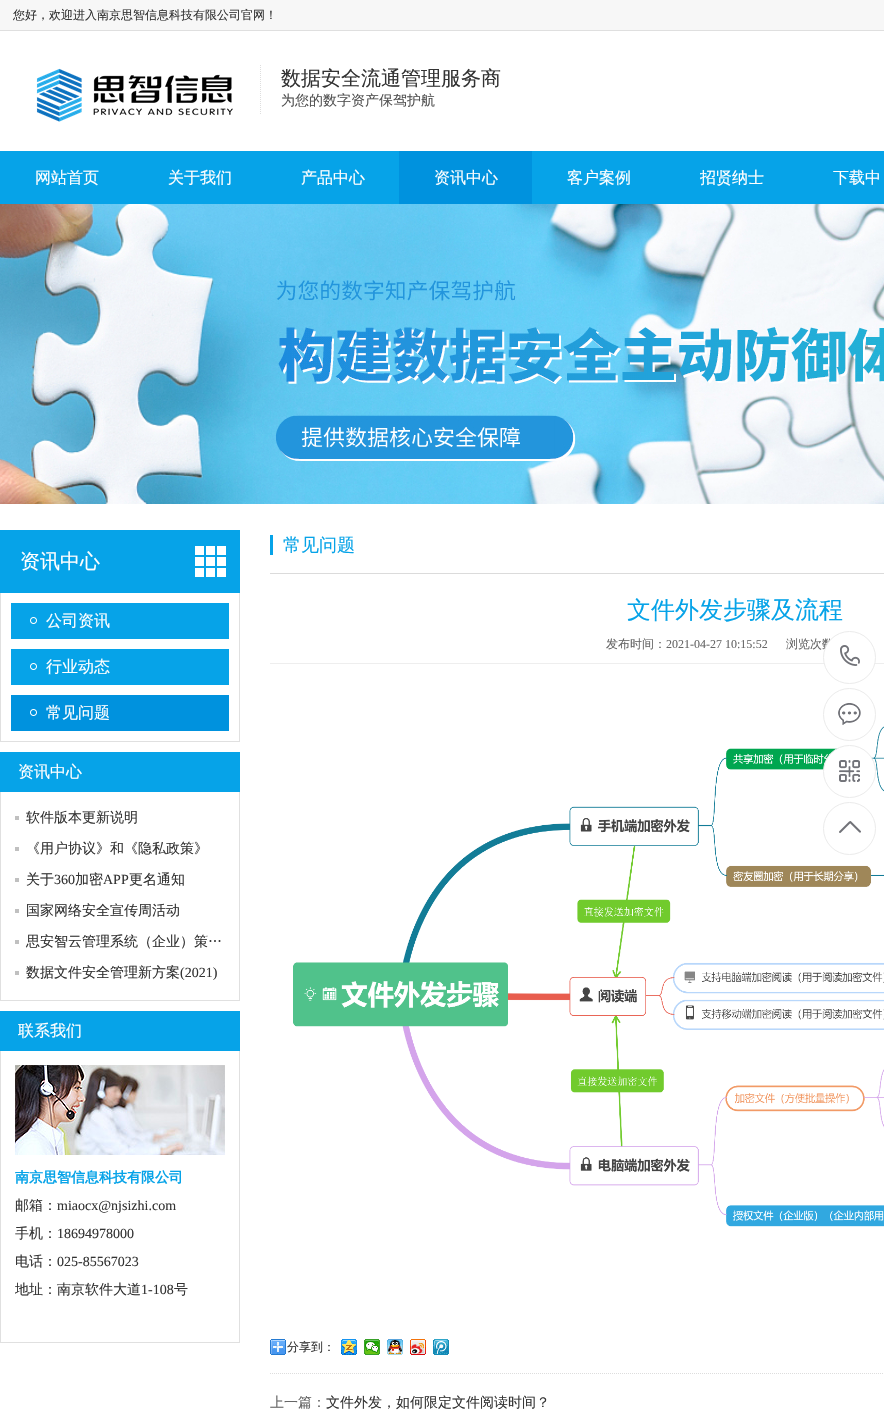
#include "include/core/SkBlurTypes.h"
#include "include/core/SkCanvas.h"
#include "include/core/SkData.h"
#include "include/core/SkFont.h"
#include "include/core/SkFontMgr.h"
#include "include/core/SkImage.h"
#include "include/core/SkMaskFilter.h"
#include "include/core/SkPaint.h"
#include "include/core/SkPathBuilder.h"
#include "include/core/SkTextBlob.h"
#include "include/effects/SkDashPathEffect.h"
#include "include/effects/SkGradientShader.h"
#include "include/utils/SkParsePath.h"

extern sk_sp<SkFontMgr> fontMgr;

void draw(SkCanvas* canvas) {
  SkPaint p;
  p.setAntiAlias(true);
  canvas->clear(SK_ColorWHITE);
  p.setColor(SkColorSetRGB(247, 247, 247));
  canvas->drawRect(SkRect::MakeLTRB(0, 0, 884, 30), p);
  p.setColor(SkColorSetRGB(223, 223, 223));
  canvas->drawRect(SkRect::MakeLTRB(0, 30, 884, 31), p);
  canvas->drawImageRect(SkImages::DeferredFromEncodedData(SkData::MakeFromFileName("images/1.png")), SkRect::MakeLTRB(0, 41, 260, 141), SkSamplingOptions());
  p.setStyle(SkPaint::kStroke_Style);
  p.setStrokeWidth(1);
  p.setColor(SkColorSetRGB(222, 222, 222));
  p.setPathEffect(SkDashPathEffect::Make({{1, 1}}, 0));
  canvas->drawPath(SkPathBuilder().moveTo(260.5f, 65).lineTo(260.5f, 115).detach(), p);
  p.setPathEffect(nullptr);
  p.setStyle(SkPaint::kFill_Style);
  p.setColor(SkColorSetRGB(6, 163, 232));
  canvas->drawRect(SkRect::MakeLTRB(0, 151, 884, 204), p);
  p.setColor(SkColorSetRGB(0, 146, 222));
  canvas->drawRect(SkRect::MakeLTRB(399, 151, 532, 204), p);
  canvas->drawImageRect(SkImages::DeferredFromEncodedData(SkData::MakeFromFileName("images/2.png")), SkRect::MakeLTRB(0, 204, 884, 504), SkSamplingOptions());
  p.setColor(SkColorSetRGB(6, 163, 232));
  canvas->drawRect(SkRect::MakeLTRB(0, 530, 240, 593), p);
  canvas->drawImageRect(SkImages::DeferredFromEncodedData(SkData::MakeFromFileName("images/3.png")), SkRect::MakeLTRB(195, 546, 226, 577), SkSamplingOptions());
  p.setColor(SkColorSetRGB(224, 224, 224));
  canvas->drawRect(SkRect::MakeLTRB(239, 593, 240, 742), p);
  canvas->drawRect(SkRect::MakeLTRB(0, 741, 240, 742), p);
  canvas->drawRect(SkRect::MakeLTRB(0, 593, 1, 742), p);
  p.setColor(SkColorSetRGB(6, 163, 232));
  canvas->drawRect(SkRect::MakeLTRB(11, 603, 229, 639), p);
  canvas->drawImageRect(SkImages::DeferredFromEncodedData(SkData::MakeFromFileName("images/4.png")), SkRect::MakeLTRB(30, 617, 37, 624), SkSamplingOptions());
  canvas->drawRect(SkRect::MakeLTRB(11, 649, 229, 685), p);
  canvas->drawImageRect(SkImages::DeferredFromEncodedData(SkData::MakeFromFileName("images/4.png")), SkRect::MakeLTRB(30, 663, 37, 670), SkSamplingOptions());
  p.setColor(SkColorSetRGB(0, 146, 222));
  canvas->drawRect(SkRect::MakeLTRB(11, 695, 229, 731), p);
  canvas->drawImageRect(SkImages::DeferredFromEncodedData(SkData::MakeFromFileName("images/5.png")), SkRect::MakeLTRB(30, 709, 37, 716), SkSamplingOptions());
  p.setColor(SkColorSetRGB(6, 163, 232));
  canvas->drawRect(SkRect::MakeLTRB(0, 752, 240, 792), p);
  p.setColor(SkColorSetRGB(224, 224, 224));
  canvas->drawRect(SkRect::MakeLTRB(239, 792, 240, 1001), p);
  canvas->drawRect(SkRect::MakeLTRB(0, 1000, 240, 1001), p);
  canvas->drawRect(SkRect::MakeLTRB(0, 792, 1, 1001), p);
  p.setColor(SkColorSetRGB(192, 192, 192));
  canvas->drawRect(SkRect::MakeLTRB(15, 816, 19, 820), p);
  canvas->drawRect(SkRect::MakeLTRB(15, 847, 19, 851), p);
  canvas->drawRect(SkRect::MakeLTRB(15, 878, 19, 882), p);
  canvas->drawRect(SkRect::MakeLTRB(15, 909, 19, 913), p);
  canvas->drawRect(SkRect::MakeLTRB(15, 940, 19, 944), p);
  canvas->drawRect(SkRect::MakeLTRB(15, 971, 19, 975), p);
  p.setColor(SkColorSetRGB(6, 163, 232));
  canvas->drawRect(SkRect::MakeLTRB(0, 1011, 240, 1051), p);
  p.setColor(SkColorSetRGB(224, 224, 224));
  canvas->drawRect(SkRect::MakeLTRB(239, 1051, 240, 1343), p);
  canvas->drawRect(SkRect::MakeLTRB(0, 1342, 240, 1343), p);
  canvas->drawRect(SkRect::MakeLTRB(0, 1051, 1, 1343), p);
  canvas->drawImageRect(SkImages::DeferredFromEncodedData(SkData::MakeFromFileName("images/6.png")), SkRect::MakeLTRB(15, 1065, 225, 1155), SkSamplingOptions());
  p.setColor(SkColorSetRGB(219, 219, 219));
  canvas->drawRect(SkRect::MakeLTRB(270, 573, 884, 574), p);
  p.setColor(SkColorSetRGB(6, 163, 232));
  canvas->drawRect(SkRect::MakeLTRB(270, 535, 273, 555), p);
  p.setColor(SkColorSetRGB(238, 238, 238));
  canvas->drawRect(SkRect::MakeLTRB(270, 663, 884, 664), p);
  canvas->drawImageRect(SkImages::DeferredFromEncodedData(SkData::MakeFromFileName("images/7.png")), SkRect::MakeLTRB(293, 726, 884, 1227), SkSamplingOptions());
  canvas->drawImageRect(SkImages::DeferredFromEncodedData(SkData::MakeFromFileName("images/8.png")), SkRect::MakeLTRB(270, 1339, 286, 1355), SkSamplingOptions());
  canvas->drawImageRect(SkImages::DeferredFromEncodedData(SkData::MakeFromFileName("images/9.png")), SkRect::MakeLTRB(341, 1339, 357, 1355), SkSamplingOptions());
  canvas->drawImageRect(SkImages::DeferredFromEncodedData(SkData::MakeFromFileName("images/10.png")), SkRect::MakeLTRB(364, 1339, 380, 1355), SkSamplingOptions());
  canvas->drawImageRect(SkImages::DeferredFromEncodedData(SkData::MakeFromFileName("images/11.png")), SkRect::MakeLTRB(387, 1339, 403, 1355), SkSamplingOptions());
  canvas->drawImageRect(SkImages::DeferredFromEncodedData(SkData::MakeFromFileName("images/12.png")), SkRect::MakeLTRB(410, 1339, 426, 1355), SkSamplingOptions());
  canvas->drawImageRect(SkImages::DeferredFromEncodedData(SkData::MakeFromFileName("images/13.png")), SkRect::MakeLTRB(433, 1339, 449, 1355), SkSamplingOptions());
  p.setStyle(SkPaint::kStroke_Style);
  p.setColor(SkColorSetRGB(221, 221, 221));
  p.setPathEffect(SkDashPathEffect::Make({{1, 1}}, 0));
  canvas->drawPath(SkPathBuilder().moveTo(270, 1373.5f).lineTo(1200, 1373.5f).detach(), p);
  p.setPathEffect(nullptr);
  p.setColor(SkColorSetRGB(235, 235, 235));
  canvas->drawCircle(849.5f, 714.5f, 26, p);
  canvas->drawImageRect(SkImages::DeferredFromEncodedData(SkData::MakeFromFileName("images/15.png")), SkRect::MakeLTRB(838, 703, 861, 725), SkSamplingOptions());
  p.setStyle(SkPaint::kFill_Style);
  p.setColor(SK_ColorWHITE);
  canvas->drawCircle(849.5f, 771.5f, 26, p);
  p.setStyle(SkPaint::kStroke_Style);
  p.setColor(SkColorSetRGB(235, 235, 235));
  canvas->drawCircle(849.5f, 771.5f, 26, p);
  canvas->drawImageRect(SkImages::DeferredFromEncodedData(SkData::MakeFromFileName("images/16.png")), SkRect::MakeLTRB(839, 760, 860, 782), SkSamplingOptions());
  canvas->drawCircle(849.5f, 828.5f, 26, p);
  canvas->drawImageRect(SkImages::DeferredFromEncodedData(SkData::MakeFromFileName("images/17.png")), SkRect::MakeLTRB(839, 821, 861, 833), SkSamplingOptions());
  SkFont font1(fontMgr->matchFamilyStyle("WenQuanYi Zen Hei", SkFontStyle(500, SkFontStyle::kNormal_Width, SkFontStyle::kUpright_Slant)), 12);
  font1.setSubpixel(true);
  p.setStyle(SkPaint::kFill_Style);
  p.setColor(SkColorSetRGB(51, 51, 51));
  canvas->drawString("您好，欢迎进入南京思智信息科技有限公司官网！", 13, 19, font1, p);
  SkFont font2(fontMgr->matchFamilyStyle("WenQuanYi Zen Hei", SkFontStyle(500, SkFontStyle::kNormal_Width, SkFontStyle::kUpright_Slant)), 20);
  font2.setSubpixel(true);
  canvas->drawString("数据安全流通管理服务商", 281, 85, font2, p);
  SkFont font3(fontMgr->matchFamilyStyle("WenQuanYi Zen Hei", SkFontStyle(500, SkFontStyle::kNormal_Width, SkFontStyle::kUpright_Slant)), 14);
  font3.setSubpixel(true);
  p.setColor(SkColorSetRGB(81, 81, 81));
  canvas->drawString("为您的数字资产保驾护航", 281, 105, font3, p);
  SkFont font4(fontMgr->matchFamilyStyle("WenQuanYi Zen Hei", SkFontStyle(500, SkFontStyle::kNormal_Width, SkFontStyle::kUpright_Slant)), 16);
  font4.setSubpixel(true);
  p.setColor(SK_ColorWHITE);
  canvas->drawString("网站首页", 35, 183, font4, p);
  canvas->drawString("关于我们", 168, 183, font4, p);
  canvas->drawString("产品中心", 301, 183, font4, p);
  canvas->drawString("资讯中心", 434, 183, font4, p);
  canvas->drawString("客户案例", 567, 183, font4, p);
  canvas->drawString("招贤纳士", 700, 183, font4, p);
  canvas->drawString("下载中", 833, 183, font4, p);
  canvas->drawString("资讯中心", 20, 568, font2, p);
  canvas->drawString("公司资讯", 46, 626, font4, p);
  canvas->drawString("行业动态", 46, 672, font4, p);
  canvas->drawString("常见问题", 46, 718, font4, p);
  canvas->drawString("资讯中心", 18, 777, font4, p);
  p.setColor(SkColorSetRGB(51, 51, 51));
  canvas->drawString("软件版本更新说明", 26, 822, font3, p);
  canvas->drawString("《用户协议》和《隐私政策》", 26, 853, font3, p);
  canvas->drawString("关于", 26, 884, font3, p);
  SkFont font5(fontMgr->matchFamilyStyle("Liberation Serif", SkFontStyle::Normal()), 14);
  font5.setSubpixel(true);
  canvas->drawString("360", 54, 884, font5, p);
  canvas->drawString("加密", 75, 884, font3, p);
  canvas->drawString("APP", 103, 884, font5, p);
  canvas->drawString("更名通知", 129, 884, font3, p);
  canvas->drawString("国家网络安全宣传周活动", 26, 915, font3, p);
  canvas->drawString("思安智云管理系统（企业）策…", 26, 946, font3, p);
  canvas->drawString("数据文件安全管理新方案", 26, 977, font3, p);
  canvas->drawString("(2021)", 180, 977, font5, p);
  p.setColor(SK_ColorWHITE);
  canvas->drawString("联系我们", 18, 1036, font4, p);
  SkFont font6(fontMgr->matchFamilyStyle("WenQuanYi Zen Hei", SkFontStyle::Bold()), 14);
  font6.setSubpixel(true);
  p.setColor(SkColorSetRGB(6, 163, 232));
  canvas->drawString("南京思智信息科技有限公司", 15, 1182, font6, p);
  p.setColor(SkColorSetRGB(51, 51, 51));
  canvas->drawString("邮箱：", 15, 1210, font3, p);
  canvas->drawString("miaocx@njsizhi.com", 57, 1210, font5, p);
  canvas->drawString("手机：", 15, 1238, font3, p);
  canvas->drawString("18694978000", 57, 1238, font5, p);
  canvas->drawString("电话：", 15, 1266, font3, p);
  canvas->drawString("025-85567023", 57, 1266, font5, p);
  canvas->drawString("地址：南京软件大道", 15, 1294, font3, p);
  canvas->drawString("1-108", 141, 1294, font5, p);
  canvas->drawString("号", 174, 1294, font3, p);
  SkFont font7(fontMgr->matchFamilyStyle("WenQuanYi Zen Hei", SkFontStyle(500, SkFontStyle::kNormal_Width, SkFontStyle::kUpright_Slant)), 18);
  font7.setSubpixel(true);
  p.setColor(SkColorSetRGB(6, 163, 232));
  canvas->drawString("常见问题", 283, 551, font7, p);
  SkFont font8(fontMgr->matchFamilyStyle("WenQuanYi Zen Hei", SkFontStyle(500, SkFontStyle::kNormal_Width, SkFontStyle::kUpright_Slant)), 24);
  font8.setSubpixel(true);
  canvas->drawString("文件外发步骤及流程", 627, 618, font8, p);
  p.setColor(SkColorSetRGB(102, 102, 102));
  canvas->drawString("发布时间：", 606, 648, font1, p);
  SkFont font9(fontMgr->matchFamilyStyle("Liberation Serif", SkFontStyle::Normal()), 12);
  font9.setSubpixel(true);
  canvas->drawString("2021-04-27 10:15:52", 666, 648, font9, p);
  canvas->drawString("浏览次数", 786, 648, font1, p);
  p.setColor(SkColorSetRGB(51, 51, 51));
  canvas->drawString("分享到：", 287, 1351, font1, p);
  p.setColor(SkColorSetRGB(102, 102, 102));
  canvas->drawString("上一篇：", 270, 1407, font3, p);
  p.setColor(SkColorSetRGB(51, 51, 51));
  canvas->drawString("文件外发，如何限定文件阅读时间？", 326, 1407, font3, p);
  p.setColor(SK_ColorWHITE);
  canvas->drawCircle(849.5f, 657.5f, 26, p);
  p.setStyle(SkPaint::kStroke_Style);
  p.setColor(SkColorSetRGB(235, 235, 235));
  canvas->drawCircle(849.5f, 657.5f, 26, p);
  canvas->drawImageRect(SkImages::DeferredFromEncodedData(SkData::MakeFromFileName("images/14.png")), SkRect::MakeLTRB(840, 645, 860, 666), SkSamplingOptions());
}
